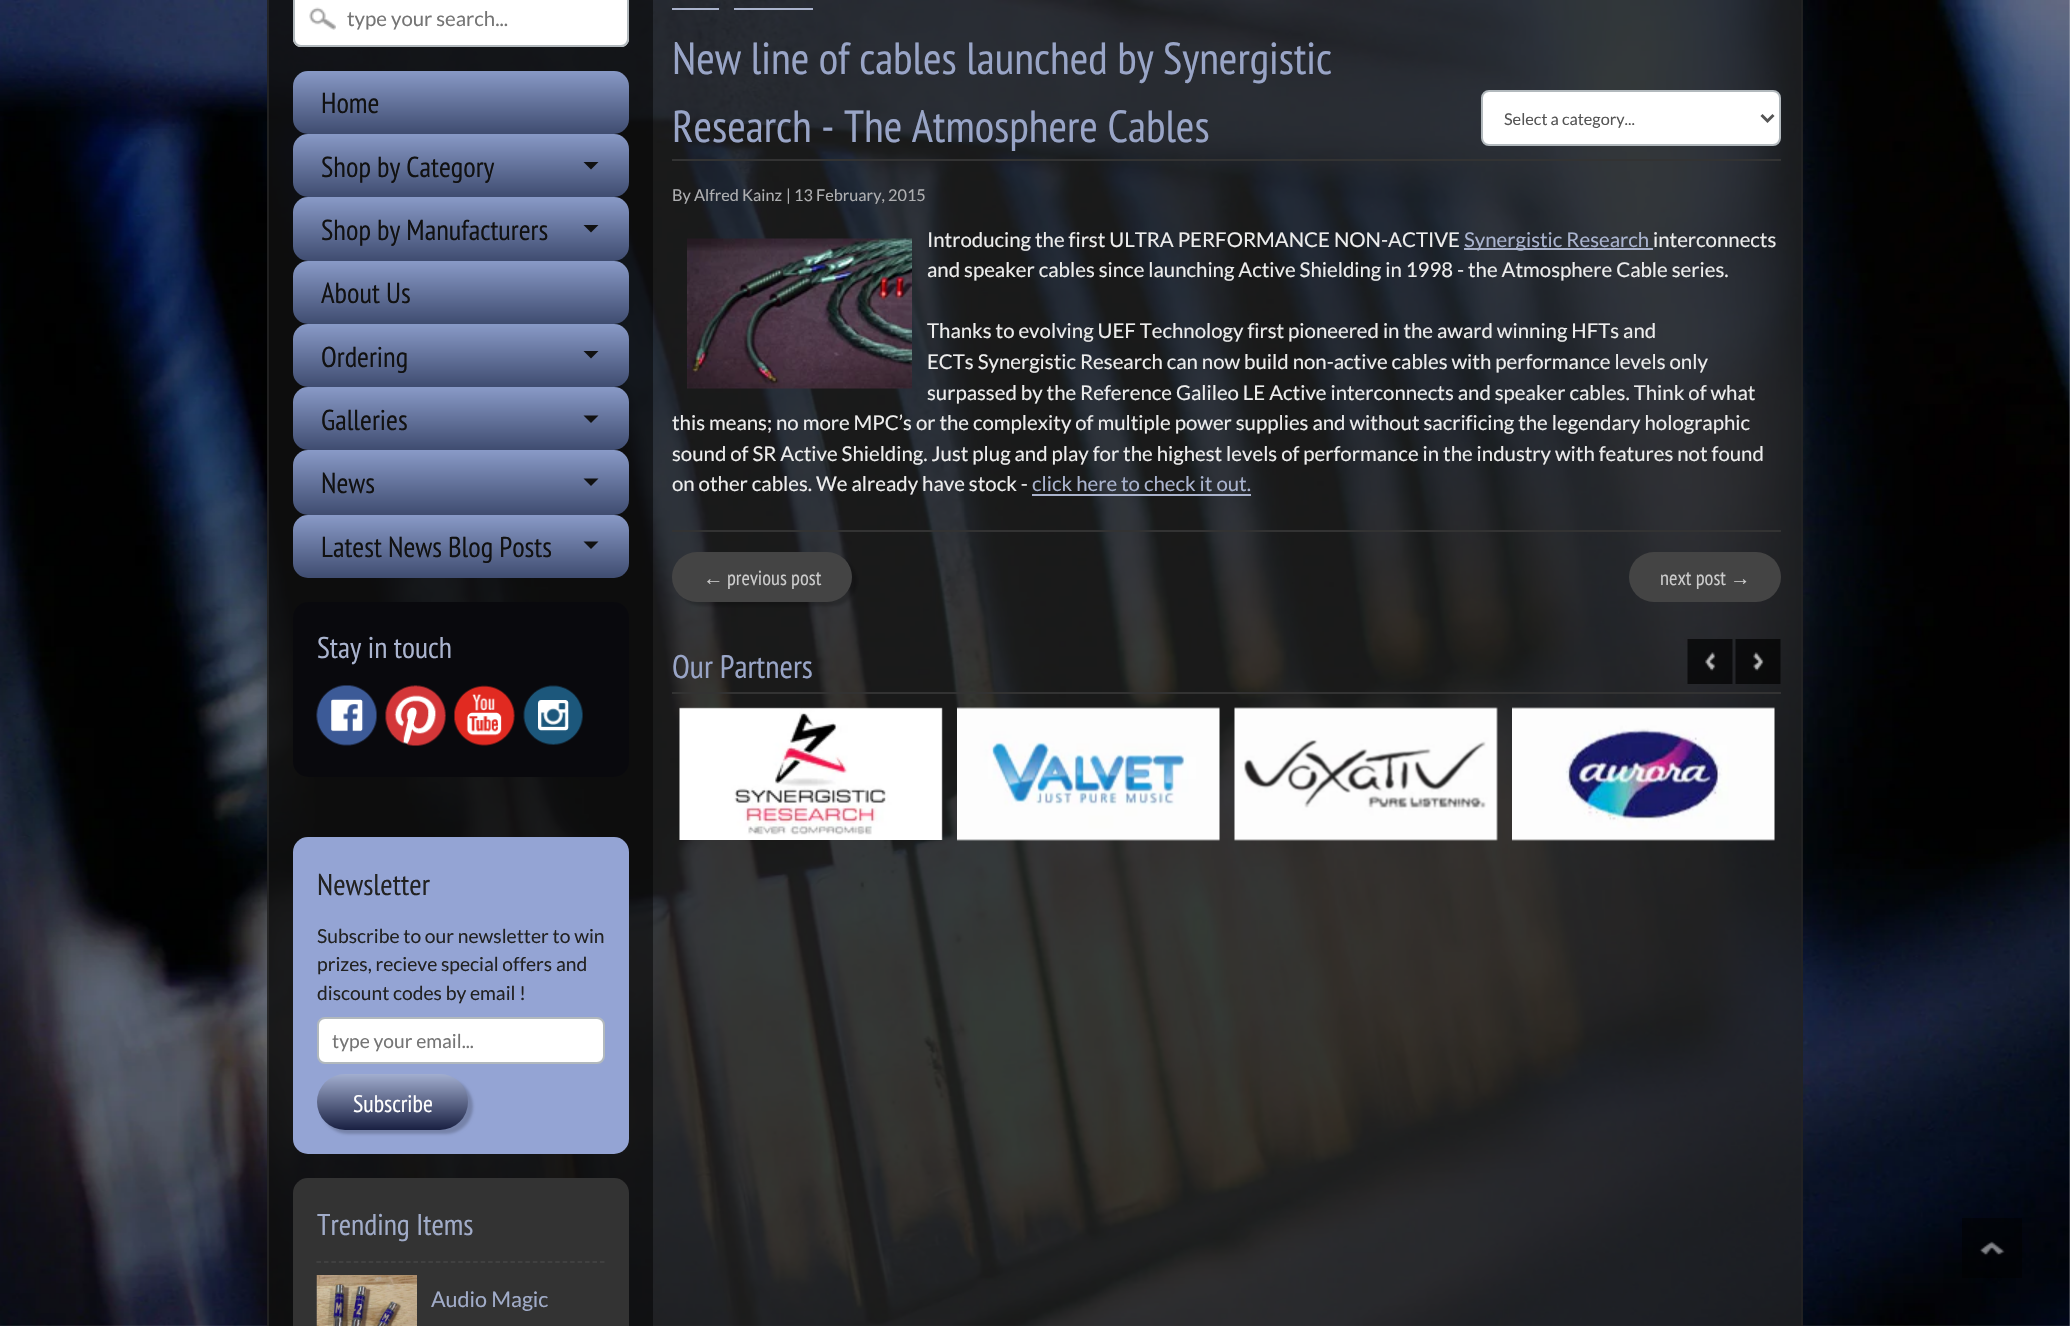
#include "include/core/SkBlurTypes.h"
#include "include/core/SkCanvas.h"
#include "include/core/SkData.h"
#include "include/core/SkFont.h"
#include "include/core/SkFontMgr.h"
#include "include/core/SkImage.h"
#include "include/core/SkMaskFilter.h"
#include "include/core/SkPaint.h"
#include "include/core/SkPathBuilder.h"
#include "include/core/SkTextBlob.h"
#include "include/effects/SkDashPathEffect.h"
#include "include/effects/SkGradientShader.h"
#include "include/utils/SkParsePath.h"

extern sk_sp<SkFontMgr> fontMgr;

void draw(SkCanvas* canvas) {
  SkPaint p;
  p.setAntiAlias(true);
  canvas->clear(SK_ColorWHITE);
  canvas->drawImageRect(SkImages::DeferredFromEncodedData(SkData::MakeFromFileName("images/1.png")), SkRect::MakeLTRB(0, 0, 2070, 1326), SkSamplingOptions());
  p.setColor(SkColorSetARGB(191, 34, 34, 34));
  canvas->drawRect(SkRect::MakeLTRB(267, 0, 1803, 1326), p);
  p.setStyle(SkPaint::kStroke_Style);
  p.setStrokeWidth(2);
  p.setColor(SkColorSetARGB(179, 34, 34, 34));
  canvas->drawRect(SkRect::MakeLTRB(268, -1, 1802, 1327), p);
  p.setStyle(SkPaint::kFill_Style);
  p.setColor(SkColorSetARGB(128, 0, 0, 0));
  canvas->drawRect(SkRect::MakeLTRB(269, 0, 653, 1326), p);
  p.setColor(SK_ColorWHITE);
  canvas->drawRoundRect(SkRect::MakeLTRB(293, -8, 629, 47), 8, 8, p);
  canvas->drawImageRect(SkImages::DeferredFromEncodedData(SkData::MakeFromFileName("images/2.png")), SkRect::MakeLTRB(309, 7, 336, 30), SkSamplingOptions());
  p.setStyle(SkPaint::kStroke_Style);
  p.setColor(SkColorSetRGB(178, 185, 189));
  canvas->drawRoundRect(SkRect::MakeLTRB(294, -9, 628, 46), 7, 7, p);
  p.setStyle(SkPaint::kFill_Style);
  {
    const SkColor colors[] = {SkColorSetRGB(137, 154, 199), SkColorSetRGB(63, 76, 112)};
    const float stops[] = {0, 1};
    const SkPoint ends[] = {{461, 70}, {461, 134}};
    p.setShader(SkGradientShader::MakeLinear(ends, colors, stops, 2, SkTileMode::kClamp));
    p.setAlpha(255);
  }
  canvas->drawRoundRect(SkRect::MakeLTRB(293, 71, 629, 134), 15, 15, p);
  {
    const SkColor colors[] = {SkColorSetRGB(137, 154, 199), SkColorSetRGB(63, 76, 112)};
    const float stops[] = {0, 1};
    const SkPoint ends[] = {{461, 133}, {461, 197}};
    p.setShader(SkGradientShader::MakeLinear(ends, colors, stops, 2, SkTileMode::kClamp));
    p.setAlpha(255);
  }
  canvas->drawRoundRect(SkRect::MakeLTRB(293, 134, 629, 197), 15, 15, p);
  p.setShader(nullptr);
  p.setColor(SkColorSetRGB(17, 17, 17));
  canvas->drawPath(SkPathBuilder().moveTo(583.5f, 162).lineTo(598.5f, 162).lineTo(591, 169.5f).close().detach(), p);
  {
    const SkColor colors[] = {SkColorSetRGB(137, 154, 199), SkColorSetRGB(63, 76, 112)};
    const float stops[] = {0, 1};
    const SkPoint ends[] = {{461, 197}, {461, 261}};
    p.setShader(SkGradientShader::MakeLinear(ends, colors, stops, 2, SkTileMode::kClamp));
    p.setAlpha(255);
  }
  canvas->drawRoundRect(SkRect::MakeLTRB(293, 197, 629, 261), 15, 15, p);
  p.setShader(nullptr);
  p.setColor(SkColorSetRGB(17, 17, 17));
  canvas->drawPath(SkPathBuilder().moveTo(583.5f, 225).lineTo(598.5f, 225).lineTo(591, 232.5f).close().detach(), p);
  {
    const SkColor colors[] = {SkColorSetRGB(137, 154, 199), SkColorSetRGB(63, 76, 112)};
    const float stops[] = {0, 1};
    const SkPoint ends[] = {{461, 261}, {461, 324}};
    p.setShader(SkGradientShader::MakeLinear(ends, colors, stops, 2, SkTileMode::kClamp));
    p.setAlpha(255);
  }
  canvas->drawRoundRect(SkRect::MakeLTRB(293, 261, 629, 324), 15, 15, p);
  {
    const SkColor colors[] = {SkColorSetRGB(137, 154, 199), SkColorSetRGB(63, 76, 112)};
    const float stops[] = {0, 1};
    const SkPoint ends[] = {{461, 324}, {461, 387}};
    p.setShader(SkGradientShader::MakeLinear(ends, colors, stops, 2, SkTileMode::kClamp));
    p.setAlpha(255);
  }
  canvas->drawRoundRect(SkRect::MakeLTRB(293, 324, 629, 387), 15, 15, p);
  p.setShader(nullptr);
  p.setColor(SkColorSetRGB(17, 17, 17));
  canvas->drawPath(SkPathBuilder().moveTo(583.5f, 351).lineTo(598.5f, 351).lineTo(591, 358.5f).close().detach(), p);
  {
    const SkColor colors[] = {SkColorSetRGB(137, 154, 199), SkColorSetRGB(63, 76, 112)};
    const float stops[] = {0, 1};
    const SkPoint ends[] = {{461, 387}, {461, 450}};
    p.setShader(SkGradientShader::MakeLinear(ends, colors, stops, 2, SkTileMode::kClamp));
    p.setAlpha(255);
  }
  canvas->drawRoundRect(SkRect::MakeLTRB(293, 387, 629, 450), 15, 15, p);
  p.setShader(nullptr);
  p.setColor(SkColorSetRGB(17, 17, 17));
  canvas->drawPath(SkPathBuilder().moveTo(583.5f, 415.5f).lineTo(598.5f, 415.5f).lineTo(591, 423).close().detach(), p);
  {
    const SkColor colors[] = {SkColorSetRGB(137, 154, 199), SkColorSetRGB(63, 76, 112)};
    const float stops[] = {0, 1};
    const SkPoint ends[] = {{461, 450}, {461, 515}};
    p.setShader(SkGradientShader::MakeLinear(ends, colors, stops, 2, SkTileMode::kClamp));
    p.setAlpha(255);
  }
  canvas->drawRoundRect(SkRect::MakeLTRB(293, 450, 629, 515), 15, 15, p);
  p.setShader(nullptr);
  p.setColor(SkColorSetRGB(17, 17, 17));
  canvas->drawPath(SkPathBuilder().moveTo(583.5f, 478.5f).lineTo(598.5f, 478.5f).lineTo(591, 486).close().detach(), p);
  {
    const SkColor colors[] = {SkColorSetRGB(137, 154, 199), SkColorSetRGB(63, 76, 112)};
    const float stops[] = {0, 1};
    const SkPoint ends[] = {{461, 515}, {461, 578}};
    p.setShader(SkGradientShader::MakeLinear(ends, colors, stops, 2, SkTileMode::kClamp));
    p.setAlpha(255);
  }
  canvas->drawRoundRect(SkRect::MakeLTRB(293, 515, 629, 578), 15, 15, p);
  p.setShader(nullptr);
  p.setColor(SkColorSetRGB(17, 17, 17));
  canvas->drawPath(SkPathBuilder().moveTo(583.5f, 541.5f).lineTo(598.5f, 541.5f).lineTo(591, 549).close().detach(), p);
  p.setColor(SkColorSetRGB(9, 9, 13));
  canvas->drawRoundRect(SkRect::MakeLTRB(293, 602, 629, 777), 15, 15, p);
  canvas->drawImageRect(SkImages::DeferredFromEncodedData(SkData::MakeFromFileName("images/3.png")), SkRect::MakeLTRB(316, 685, 377, 746), SkSamplingOptions());
  canvas->drawImageRect(SkImages::DeferredFromEncodedData(SkData::MakeFromFileName("images/4.png")), SkRect::MakeLTRB(385, 685, 446, 746), SkSamplingOptions());
  canvas->drawImageRect(SkImages::DeferredFromEncodedData(SkData::MakeFromFileName("images/5.png")), SkRect::MakeLTRB(454, 685, 515, 746), SkSamplingOptions());
  canvas->drawImageRect(SkImages::DeferredFromEncodedData(SkData::MakeFromFileName("images/6.png")), SkRect::MakeLTRB(523, 685, 583, 745), SkSamplingOptions());
  p.setColor(SkColorSetRGB(148, 164, 212));
  canvas->drawRoundRect(SkRect::MakeLTRB(293, 837, 629, 1154), 15, 15, p);
  p.setColor(SK_ColorWHITE);
  canvas->drawRoundRect(SkRect::MakeLTRB(318, 1018, 604, 1063), 7, 7, p);
  p.setStyle(SkPaint::kStroke_Style);
  p.setColor(SkColorSetRGB(178, 185, 189));
  canvas->drawRoundRect(SkRect::MakeLTRB(318, 1018, 604, 1063), 7, 7, p);
  p.setStyle(SkPaint::kFill_Style);
  p.setColor(SkColorSetARGB(51, 0, 0, 0));
  p.setMaskFilter(SkMaskFilter::MakeBlur(kNormal_SkBlurStyle, 1.5f));
  canvas->drawRoundRect(SkRect::MakeLTRB(321, 1079, 473, 1134), 27.5f, 27.5f, p);
  p.setMaskFilter(nullptr);
  {
    const SkColor colors[] = {SkColorSetRGB(162, 174, 207), SkColorSetRGB(25, 32, 66)};
    const float stops[] = {0, 1};
    const SkPoint ends[] = {{392, 1074}, {392, 1130}};
    p.setShader(SkGradientShader::MakeLinear(ends, colors, stops, 2, SkTileMode::kClamp));
    p.setAlpha(255);
  }
  canvas->drawRoundRect(SkRect::MakeLTRB(317, 1074, 468, 1130), 28, 28, p);
  p.setShader(nullptr);
  p.setColor(SkColorSetRGB(51, 51, 51));
  canvas->drawRoundRect(SkRect::MakeLTRB(293, 1178, 629, 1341), 15, 15, p);
  p.setStyle(SkPaint::kStroke_Style);
  p.setStrokeWidth(1.5f);
  p.setColor(SkColorSetRGB(68, 68, 68));
  p.setPathEffect(SkDashPathEffect::Make({{4.5f, 2.96f}}, 0));
  canvas->drawPath(SkPathBuilder().moveTo(316.5f, 1262).lineTo(604.5f, 1262).detach(), p);
  p.setPathEffect(nullptr);
  canvas->drawImageRect(SkImages::DeferredFromEncodedData(SkData::MakeFromFileName("images/7.png")), SkRect::MakeLTRB(316, 1275, 417, 1326), SkSamplingOptions());
  p.setStyle(SkPaint::kFill_Style);
  p.setColor(SkColorSetRGB(170, 179, 204));
  canvas->drawRect(SkRect::MakeLTRB(672, 8, 719, 10), p);
  canvas->drawRect(SkRect::MakeLTRB(734, 8, 813, 10), p);
  p.setColor(SkColorSetRGB(51, 51, 51));
  canvas->drawRect(SkRect::MakeLTRB(672, 159, 1781, 161), p);
  p.setColor(SK_ColorWHITE);
  canvas->drawRoundRect(SkRect::MakeLTRB(1482, 91, 1780, 145), 7, 7, p);
  p.setStyle(SkPaint::kStroke_Style);
  p.setStrokeWidth(2);
  p.setColor(SkColorSetRGB(178, 185, 189));
  canvas->drawRoundRect(SkRect::MakeLTRB(1482, 91, 1780, 145), 7, 7, p);
  p.setStrokeWidth(3);
  p.setColor(SkColorSetRGB(85, 85, 85));
  canvas->drawPath(SkPathBuilder().moveTo(1761.5f, 115).lineTo(1767.5f, 121).lineTo(1773.5f, 115).detach(), p);
  canvas->drawImageRect(SkImages::DeferredFromEncodedData(SkData::MakeFromFileName("images/8.png")), SkRect::MakeLTRB(687, 238, 912, 389), SkSamplingOptions());
  p.setStyle(SkPaint::kFill_Style);
  p.setColor(SkColorSetRGB(170, 179, 204));
  canvas->drawRect(SkRect::MakeLTRB(1464, 248, 1653, 250), p);
  canvas->drawRect(SkRect::MakeLTRB(1032, 494, 1251, 496), p);
  p.setColor(SkColorSetRGB(51, 51, 51));
  canvas->drawRect(SkRect::MakeLTRB(672, 530, 1781, 532), p);
  p.setColor(SkColorSetARGB(51, 0, 0, 0));
  p.setMaskFilter(SkMaskFilter::MakeBlur(kNormal_SkBlurStyle, 1.5f));
  canvas->drawRoundRect(SkRect::MakeLTRB(677, 557, 857, 606), 24.5f, 24.5f, p);
  p.setMaskFilter(nullptr);
  p.setColor(SkColorSetRGB(68, 68, 68));
  canvas->drawRoundRect(SkRect::MakeLTRB(672, 552, 852, 602), 25, 25, p);
  canvas->drawRoundRect(SkRect::MakeLTRB(1629, 552, 1781, 602), 25, 25, p);
  canvas->drawImageRect(SkImages::DeferredFromEncodedData(SkData::MakeFromFileName("images/9.png")), SkRect::MakeLTRB(1687, 639, 1733, 684), SkSamplingOptions());
  canvas->drawImageRect(SkImages::DeferredFromEncodedData(SkData::MakeFromFileName("images/10.png")), SkRect::MakeLTRB(1735, 639, 1781, 684), SkSamplingOptions());
  canvas->drawImageRect(SkImages::DeferredFromEncodedData(SkData::MakeFromFileName("images/11.png")), SkRect::MakeLTRB(679, 707, 943, 840), SkSamplingOptions());
  canvas->drawImageRect(SkImages::DeferredFromEncodedData(SkData::MakeFromFileName("images/12.png")), SkRect::MakeLTRB(957, 707, 1220, 841), SkSamplingOptions());
  canvas->drawImageRect(SkImages::DeferredFromEncodedData(SkData::MakeFromFileName("images/13.png")), SkRect::MakeLTRB(1234, 707, 1498, 841), SkSamplingOptions());
  canvas->drawImageRect(SkImages::DeferredFromEncodedData(SkData::MakeFromFileName("images/14.png")), SkRect::MakeLTRB(1512, 707, 1775, 841), SkSamplingOptions());
  p.setColor(SkColorSetRGB(51, 51, 51));
  canvas->drawRect(SkRect::MakeLTRB(672, 692, 1781, 694), p);
  canvas->drawImageRect(SkImages::DeferredFromEncodedData(SkData::MakeFromFileName("images/15.png")), SkRect::MakeLTRB(1962, 1218, 2022, 1278), SkSamplingOptions());
  SkFont font1(fontMgr->matchFamilyStyle("Lato", SkFontStyle::Normal()), 20.4f);
  font1.setSubpixel(true);
  p.setColor(SkColorSetRGB(117, 117, 117));
  canvas->drawString("type your search...", 347, 26, font1, p);
  SkFont font2(fontMgr->matchFamilyStyle("PT Sans Narrow", SkFontStyle::Normal()), 28.75f);
  font2.setSubpixel(true);
  p.setColor(SkColorSetRGB(17, 17, 17));
  canvas->drawString("Home", 321, 113, font2, p);
  canvas->drawString("Shop by Category", 321, 177, font2, p);
  canvas->drawString("Shop by Manufacturers", 321, 240, font2, p);
  canvas->drawString("About Us", 321, 303, font2, p);
  canvas->drawString("Ordering", 321, 367, font2, p);
  canvas->drawString("Galleries", 321, 430, font2, p);
  canvas->drawString("News", 321, 493, font2, p);
  canvas->drawString("Latest News Blog Posts", 321, 557, font2, p);
  SkFont font3(fontMgr->matchFamilyStyle("PT Sans Narrow", SkFontStyle::Normal()), 30);
  font3.setSubpixel(true);
  p.setColor(SkColorSetRGB(170, 180, 207));
  canvas->drawString("Stay in touch", 317, 658, font3, p);
  p.setColor(SkColorSetRGB(34, 34, 34));
  canvas->drawString("Newsletter", 317, 895, font3, p);
  SkFont font4(fontMgr->matchFamilyStyle("Lato", SkFontStyle::Normal()), 19.25f);
  font4.setSubpixel(true);
  canvas->drawString("Subscribe to our newsletter to win", 317, 943, font4, p);
  canvas->drawString("prizes, recieve special offers and", 317, 971, font4, p);
  canvas->drawString("discount codes by email !", 317, 1000, font4, p);
  p.setColor(SkColorSetRGB(117, 117, 117));
  canvas->drawString("type your email...", 332, 1048, font4, p);
  SkFont font5(fontMgr->matchFamilyStyle("PT Sans Narrow", SkFontStyle::Normal()), 24);
  font5.setSubpixel(true);
  p.setColor(SK_ColorWHITE);
  canvas->drawString("Subscribe", 353, 1112, font5, p);
  p.setColor(SkColorSetRGB(161, 172, 201));
  canvas->drawString("Trending Items", 317, 1235, font3, p);
  SkFont font6(fontMgr->matchFamilyStyle("Lato", SkFontStyle::Normal()), 21.5f);
  font6.setSubpixel(true);
  canvas->drawString("Audio Magic", 431, 1307, font6, p);
  SkFont font7(fontMgr->matchFamilyStyle("PT Sans Narrow", SkFontStyle::Normal()), 44.9f);
  font7.setSubpixel(true);
  p.setColor(SkColorSetRGB(153, 165, 199));
  canvas->drawString("New line of cables launched by Synergistic", 672, 74, font7, p);
  canvas->drawString("Research - The Atmosphere Cables", 672, 142, font7, p);
  SkFont font8(fontMgr->matchFamilyStyle("Lato", SkFontStyle::Normal()), 16.25f);
  font8.setSubpixel(true);
  p.setColor(SkColorSetRGB(85, 85, 85));
  canvas->drawString("Select a category...", 1504, 125, font8, p);
  p.setColor(SkColorSetRGB(174, 175, 177));
  canvas->drawString("By Alfred Kainz", 672, 201, font8, p);
  canvas->drawString("|", 786, 201, font8, p);
  canvas->drawString("13 February, 2015", 794, 201, font8, p);
  p.setColor(SkColorSetRGB(237, 237, 237));
  canvas->drawString("Introducing the first ULTRA PERFORMANCE NON-ACTIVE", 927, 247, font1, p);
  p.setColor(SkColorSetRGB(170, 180, 207));
  canvas->drawString("Synergistic Research", 1464, 247, font1, p);
  p.setColor(SkColorSetRGB(237, 237, 237));
  canvas->drawString("interconnects", 1653, 247, font1, p);
  canvas->drawString("and speaker cables since launching Active Shielding in 1998 - the Atmosphere Cable series.", 927, 277, font1, p);
  canvas->drawString("Thanks to evolving UEF Technology first pioneered in the award winning HFTs and", 927, 338, font1, p);
  canvas->drawString("ECTs Synergistic Research can now build non-active cables with performance levels only", 927, 369, font1, p);
  canvas->drawString("surpassed by the Reference Galileo LE Active interconnects and speaker cables. Think of what", 927, 400, font1, p);
  canvas->drawString("this means; no more MPC’s or the complexity of multiple power supplies and without sacrificing the legendary holographic", 672, 430, font1, p);
  canvas->drawString("sound of SR Active Shielding. Just plug and play for the highest levels of performance in the industry with features not found", 672, 461, font1, p);
  canvas->drawString("on other cables. We already have stock -", 672, 491, font1, p);
  p.setColor(SkColorSetRGB(170, 180, 207));
  canvas->drawString("click here to check it out.", 1032, 491, font1, p);
  SkFont font9(fontMgr->matchFamilyStyle("Liberation Sans", SkFontStyle::Normal()), 20.4f);
  font9.setSubpixel(true);
  p.setColor(SkColorSetRGB(204, 204, 204));
  canvas->drawString("←", 703, 585, font9, p);
  SkFont font10(fontMgr->matchFamilyStyle("PT Sans Narrow", SkFontStyle::Normal()), 20.4f);
  font10.setSubpixel(true);
  canvas->drawString("previous post", 727, 585, font10, p);
  canvas->drawString("next post", 1660, 585, font10, p);
  canvas->drawString("→", 1730, 585, font9, p);
  SkFont font11(fontMgr->matchFamilyStyle("PT Sans Narrow", SkFontStyle::Normal()), 32.5f);
  font11.setSubpixel(true);
  p.setColor(SkColorSetRGB(153, 165, 199));
  canvas->drawString("Our Partners", 672, 678, font11, p);
}
